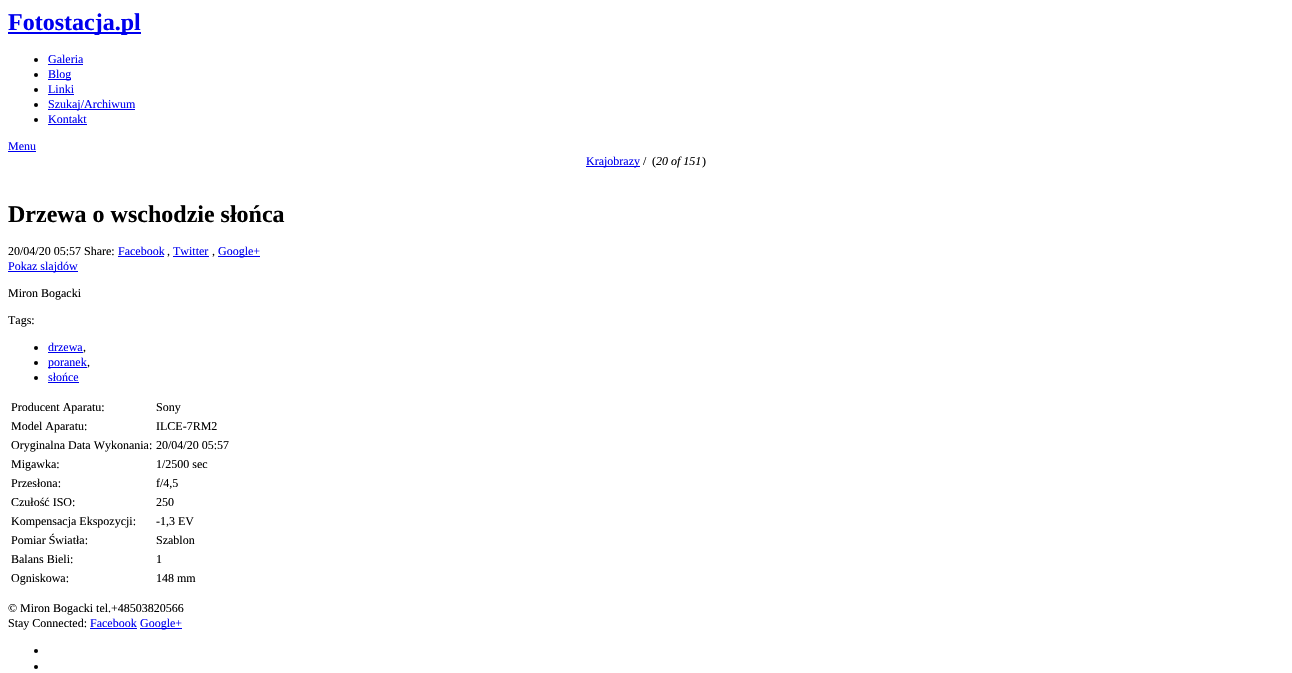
#include "include/core/SkBlurTypes.h"
#include "include/core/SkCanvas.h"
#include "include/core/SkData.h"
#include "include/core/SkFont.h"
#include "include/core/SkFontMgr.h"
#include "include/core/SkImage.h"
#include "include/core/SkMaskFilter.h"
#include "include/core/SkPaint.h"
#include "include/core/SkPathBuilder.h"
#include "include/core/SkTextBlob.h"
#include "include/effects/SkDashPathEffect.h"
#include "include/effects/SkGradientShader.h"
#include "include/utils/SkParsePath.h"

extern sk_sp<SkFontMgr> fontMgr;

void draw(SkCanvas* canvas) {
  SkPaint p;
  p.setAntiAlias(true);
  canvas->clear(SK_ColorWHITE);
  p.setColor(SkColorSetRGB(0, 0, 238));
  canvas->drawRect(SkRect::MakeLTRB(8, 32, 141, 34), p);
  p.setColor(SK_ColorBLACK);
  canvas->drawCircle(36, 60, 2, p);
  p.setColor(SkColorSetRGB(0, 0, 238));
  canvas->drawRect(SkRect::MakeLTRB(48, 64, 83, 65), p);
  p.setColor(SK_ColorBLACK);
  canvas->drawCircle(36, 75, 2, p);
  p.setColor(SkColorSetRGB(0, 0, 238));
  canvas->drawRect(SkRect::MakeLTRB(48, 79, 71, 80), p);
  p.setColor(SK_ColorBLACK);
  canvas->drawCircle(36, 90, 2, p);
  p.setColor(SkColorSetRGB(0, 0, 238));
  canvas->drawRect(SkRect::MakeLTRB(48, 94, 74, 95), p);
  p.setColor(SK_ColorBLACK);
  canvas->drawCircle(36, 105, 2, p);
  p.setColor(SkColorSetRGB(0, 0, 238));
  canvas->drawRect(SkRect::MakeLTRB(48, 109, 135, 110), p);
  p.setColor(SK_ColorBLACK);
  canvas->drawCircle(36, 120, 2, p);
  p.setColor(SkColorSetRGB(0, 0, 238));
  canvas->drawRect(SkRect::MakeLTRB(48, 124, 87, 125), p);
  canvas->drawRect(SkRect::MakeLTRB(8, 151, 36, 152), p);
  canvas->drawRect(SkRect::MakeLTRB(586, 166, 640, 167), p);
  canvas->drawRect(SkRect::MakeLTRB(118, 256, 164, 257), p);
  canvas->drawRect(SkRect::MakeLTRB(173, 256, 209, 257), p);
  canvas->drawRect(SkRect::MakeLTRB(218, 256, 260, 257), p);
  canvas->drawRect(SkRect::MakeLTRB(8, 271, 78, 272), p);
  p.setColor(SK_ColorBLACK);
  canvas->drawCircle(36, 348, 2, p);
  p.setColor(SkColorSetRGB(0, 0, 238));
  canvas->drawRect(SkRect::MakeLTRB(48, 352, 83, 353), p);
  p.setColor(SK_ColorBLACK);
  canvas->drawCircle(36, 363, 2, p);
  p.setColor(SkColorSetRGB(0, 0, 238));
  canvas->drawRect(SkRect::MakeLTRB(48, 367, 87, 368), p);
  p.setColor(SK_ColorBLACK);
  canvas->drawCircle(36, 378, 2, p);
  p.setColor(SkColorSetRGB(0, 0, 238));
  canvas->drawRect(SkRect::MakeLTRB(48, 382, 79, 383), p);
  canvas->drawRect(SkRect::MakeLTRB(90, 628, 137, 629), p);
  canvas->drawRect(SkRect::MakeLTRB(140, 628, 182, 629), p);
  p.setColor(SK_ColorBLACK);
  canvas->drawCircle(36, 651, 2, p);
  canvas->drawCircle(36, 667, 2, p);
  SkFont font1(fontMgr->matchFamilyStyle("Liberation Serif", SkFontStyle::Bold()), 24);
  font1.setSubpixel(true);
  p.setColor(SkColorSetRGB(0, 0, 238));
  canvas->drawString("Fotostacja.pl", 8, 30, font1, p);
  SkFont font2(fontMgr->matchFamilyStyle("Liberation Serif", SkFontStyle::Normal()), 12);
  font2.setSubpixel(true);
  canvas->drawString("Galeria", 48, 63, font2, p);
  canvas->drawString("Blog", 48, 78, font2, p);
  canvas->drawString("Linki", 48, 93, font2, p);
  canvas->drawString("Szukaj/Archiwum", 48, 108, font2, p);
  canvas->drawString("Kontakt", 48, 123, font2, p);
  canvas->drawString("Menu", 8, 150, font2, p);
  canvas->drawString("Krajobrazy", 586, 165, font2, p);
  p.setColor(SK_ColorBLACK);
  canvas->drawString("/", 643, 165, font2, p);
  canvas->drawString("(", 652, 165, font2, p);
  SkFont font3(fontMgr->matchFamilyStyle("Liberation Serif", SkFontStyle::Italic()), 12);
  font3.setSubpixel(true);
  canvas->drawString("20 of 151", 656, 165, font3, p);
  canvas->drawString(")", 702, 165, font2, p);
  canvas->drawString("Drzewa o wschodzie słońca", 8, 222, font1, p);
  canvas->drawString("20/04/20 05:57 Share:", 8, 255, font2, p);
  p.setColor(SkColorSetRGB(0, 0, 238));
  canvas->drawString("Facebook", 118, 255, font2, p);
  p.setColor(SK_ColorBLACK);
  canvas->drawString(",", 167, 255, font2, p);
  p.setColor(SkColorSetRGB(0, 0, 238));
  canvas->drawString("Twitter", 173, 255, font2, p);
  p.setColor(SK_ColorBLACK);
  canvas->drawString(",", 212, 255, font2, p);
  p.setColor(SkColorSetRGB(0, 0, 238));
  canvas->drawString("Google+", 218, 255, font2, p);
  canvas->drawString("Pokaz slajdów", 8, 270, font2, p);
  p.setColor(SK_ColorBLACK);
  canvas->drawString("Miron Bogacki", 8, 297, font2, p);
  canvas->drawString("Tags:", 8, 324, font2, p);
  p.setColor(SkColorSetRGB(0, 0, 238));
  canvas->drawString("drzewa", 48, 351, font2, p);
  p.setColor(SK_ColorBLACK);
  canvas->drawString(",", 83, 351, font2, p);
  p.setColor(SkColorSetRGB(0, 0, 238));
  canvas->drawString("poranek", 48, 366, font2, p);
  p.setColor(SK_ColorBLACK);
  canvas->drawString(",", 87, 366, font2, p);
  p.setColor(SkColorSetRGB(0, 0, 238));
  canvas->drawString("słońce", 48, 381, font2, p);
  p.setColor(SK_ColorBLACK);
  canvas->drawString("Producent Aparatu:", 11, 411, font2, p);
  canvas->drawString("Sony", 156, 411, font2, p);
  canvas->drawString("Model Aparatu:", 11, 430, font2, p);
  canvas->drawString("ILCE-7RM2", 156, 430, font2, p);
  canvas->drawString("Oryginalna Data Wykonania:", 11, 449, font2, p);
  canvas->drawString("20/04/20 05:57", 156, 449, font2, p);
  canvas->drawString("Migawka:", 11, 468, font2, p);
  canvas->drawString("1/2500 sec", 156, 468, font2, p);
  canvas->drawString("Przesłona:", 11, 487, font2, p);
  canvas->drawString("f/4,5", 156, 487, font2, p);
  canvas->drawString("Czułość ISO:", 11, 506, font2, p);
  canvas->drawString("250", 156, 506, font2, p);
  canvas->drawString("Kompensacja Ekspozycji:", 11, 525, font2, p);
  canvas->drawString("-1,3 EV", 156, 525, font2, p);
  canvas->drawString("Pomiar Światła:", 11, 544, font2, p);
  canvas->drawString("Szablon", 156, 544, font2, p);
  canvas->drawString("Balans Bieli:", 11, 563, font2, p);
  canvas->drawString("1", 156, 563, font2, p);
  canvas->drawString("Ogniskowa:", 11, 582, font2, p);
  canvas->drawString("148 mm", 156, 582, font2, p);
  canvas->drawString("© Miron Bogacki tel.+48503820566", 8, 612, font2, p);
  canvas->drawString("Stay Connected:", 8, 627, font2, p);
  p.setColor(SkColorSetRGB(0, 0, 238));
  canvas->drawString("Facebook", 90, 627, font2, p);
  canvas->drawString("Google+", 140, 627, font2, p);
}
